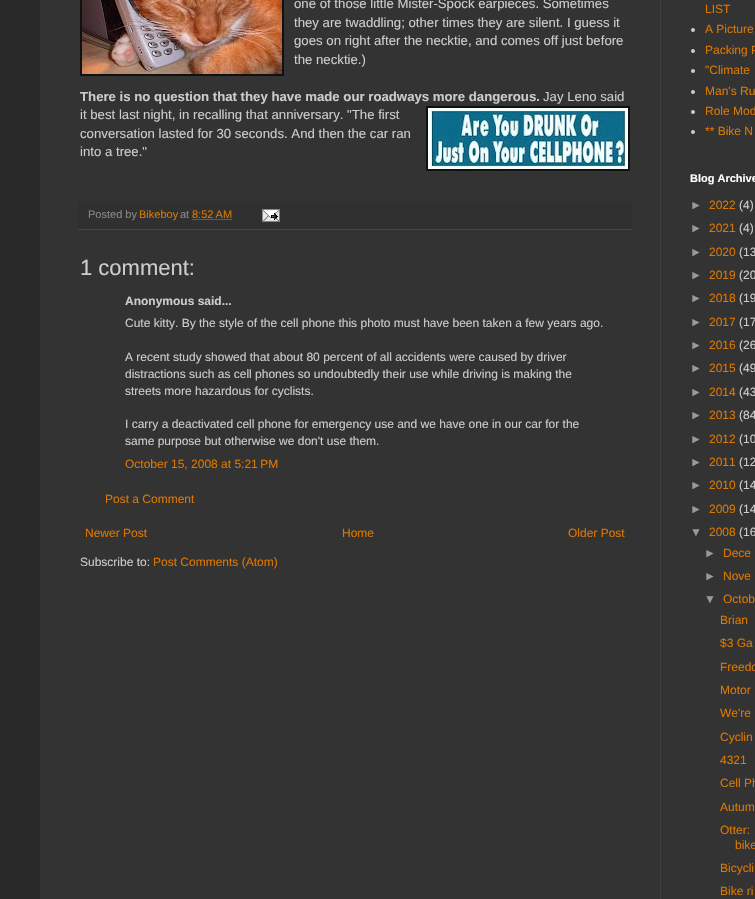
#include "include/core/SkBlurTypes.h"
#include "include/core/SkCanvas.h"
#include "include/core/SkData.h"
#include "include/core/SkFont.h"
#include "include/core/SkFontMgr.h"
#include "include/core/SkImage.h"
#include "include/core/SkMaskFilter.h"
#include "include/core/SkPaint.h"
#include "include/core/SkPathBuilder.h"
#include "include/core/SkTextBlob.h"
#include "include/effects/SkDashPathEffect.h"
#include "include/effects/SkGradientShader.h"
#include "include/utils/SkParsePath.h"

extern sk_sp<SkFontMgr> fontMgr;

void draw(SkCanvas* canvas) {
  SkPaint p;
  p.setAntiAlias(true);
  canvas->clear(SkColorSetRGB(41, 41, 41));
  p.setColor(SkColorSetRGB(51, 51, 51));
  canvas->drawRect(SkRect::MakeLTRB(40, 0, 755, 899), p);
  p.setColor(SkColorSetRGB(17, 17, 17));
  canvas->drawRect(SkRect::MakeLTRB(80, 0, 284, 76), p);
  canvas->drawImageRect(SkImages::DeferredFromEncodedData(SkData::MakeFromFileName("images/1.png")), SkRect::MakeLTRB(82, 0, 282, 74), SkSamplingOptions());
  canvas->drawRect(SkRect::MakeLTRB(426, 106, 630, 171), p);
  canvas->drawImageRect(SkImages::DeferredFromEncodedData(SkData::MakeFromFileName("images/2.png")), SkRect::MakeLTRB(428, 108, 628, 169), SkSamplingOptions());
  p.setColor(SkColorSetRGB(48, 48, 48));
  canvas->drawRect(SkRect::MakeLTRB(78, 201, 632, 229), p);
  p.setColor(SkColorSetRGB(68, 68, 68));
  canvas->drawRect(SkRect::MakeLTRB(78, 229, 632, 230), p);
  p.setStyle(SkPaint::kStroke_Style);
  p.setStrokeWidth(1);
  p.setColor(SkColorSetRGB(221, 119, 0));
  p.setPathEffect(SkDashPathEffect::Make({{1, 1}}, 0));
  canvas->drawPath(SkPathBuilder().moveTo(192.5f, 219.5f).lineTo(232, 219.5f).detach(), p);
  p.setPathEffect(nullptr);
  canvas->drawImageRect(SkImages::DeferredFromEncodedData(SkData::MakeFromFileName("images/3.png")), SkRect::MakeLTRB(262, 209, 280, 222), SkSamplingOptions());
  p.setStyle(SkPaint::kFill_Style);
  p.setColor(SkColorSetRGB(204, 204, 204));
  canvas->drawCircle(693, 30, 2, p);
  canvas->drawCircle(693, 51, 2, p);
  canvas->drawCircle(693, 71, 2, p);
  canvas->drawCircle(693, 92, 2, p);
  canvas->drawCircle(693, 112, 2, p);
  canvas->drawCircle(693, 132, 2, p);
  p.setColor(SkColorSetRGB(64, 64, 64));
  canvas->drawRect(SkRect::MakeLTRB(660, 0, 661, 899), p);
  SkFont font1(fontMgr->matchFamilyStyle("Liberation Sans", SkFontStyle::Normal()), 13.2f);
  font1.setSubpixel(true);
  p.setColor(SkColorSetRGB(204, 204, 204));
  canvas->drawString("one of those little Mister-Spock earpieces. Sometimes", 294, 8, font1, p);
  canvas->drawString("they are twaddling; other times they are silent. I guess it", 294, 27, font1, p);
  canvas->drawString("goes on right after the necktie, and comes off just before", 294, 45, font1, p);
  canvas->drawString("the necktie.)", 294, 64, font1, p);
  SkFont font2(fontMgr->matchFamilyStyle("Liberation Sans", SkFontStyle::Bold()), 13.2f);
  font2.setSubpixel(true);
  canvas->drawString("There is no question that they have made our roadways more dangerous.", 80, 101, font2, p);
  canvas->drawString("Jay Leno said", 543, 101, font1, p);
  canvas->drawString("it best last night, in recalling that anniversary. \"The first", 80, 119, font1, p);
  canvas->drawString("conversation lasted for 30 seconds. And then the car ran", 80, 138, font1, p);
  canvas->drawString("into a tree.\"", 80, 156, font1, p);
  SkFont font3(fontMgr->matchFamilyStyle("Liberation Sans", SkFontStyle::Normal()), 11);
  font3.setSubpixel(true);
  p.setColor(SkColorSetRGB(136, 136, 136));
  canvas->drawString("Posted by", 88, 218, font3, p);
  p.setColor(SkColorSetRGB(221, 119, 0));
  canvas->drawString("Bikeboy", 139, 218, font3, p);
  p.setColor(SkColorSetRGB(136, 136, 136));
  canvas->drawString("at", 180, 218, font3, p);
  p.setColor(SkColorSetRGB(221, 119, 0));
  canvas->drawString("8:52 AM", 192, 218, font3, p);
  SkFont font4(fontMgr->matchFamilyStyle("Liberation Sans", SkFontStyle::Normal()), 22);
  font4.setSubpixel(true);
  p.setColor(SkColorSetRGB(204, 204, 204));
  canvas->drawString("1 comment:", 80, 275, font4, p);
  SkFont font5(fontMgr->matchFamilyStyle("Liberation Sans", SkFontStyle::Bold()), 12);
  font5.setSubpixel(true);
  canvas->drawString("Anonymous said...", 125, 305, font5, p);
  SkFont font6(fontMgr->matchFamilyStyle("Liberation Sans", SkFontStyle::Normal()), 12);
  font6.setSubpixel(true);
  canvas->drawString("Cute kitty. By the style of the cell phone this photo must have been taken a few years ago.", 125, 327, font6, p);
  canvas->drawString("A recent study showed that about 80 percent of all accidents were caused by driver", 125, 361, font6, p);
  canvas->drawString("distractions such as cell phones so undoubtedly their use while driving is making the", 125, 378, font6, p);
  canvas->drawString("streets more hazardous for cyclists.", 125, 395, font6, p);
  canvas->drawString("I carry a deactivated cell phone for emergency use and we have one in our car for the", 125, 428, font6, p);
  canvas->drawString("same purpose but otherwise we don't use them.", 125, 445, font6, p);
  p.setColor(SkColorSetRGB(221, 119, 0));
  canvas->drawString("October 15, 2008 at 5:21 PM", 125, 468, font6, p);
  canvas->drawString("Post a Comment", 105, 503, font6, p);
  canvas->drawString("Newer Post", 85, 537, font6, p);
  canvas->drawString("Home", 342, 537, font6, p);
  canvas->drawString("Older Post", 568, 537, font6, p);
  p.setColor(SkColorSetRGB(204, 204, 204));
  canvas->drawString("Subscribe to:", 80, 566, font6, p);
  p.setColor(SkColorSetRGB(221, 119, 0));
  canvas->drawString("Post Comments (Atom)", 153, 566, font6, p);
  canvas->drawString("LIST", 705, 13, font6, p);
  canvas->drawString("A Picture", 705, 33, font6, p);
  canvas->drawString("Packing P", 705, 54, font6, p);
  canvas->drawString("\"Climate", 705, 74, font6, p);
  canvas->drawString("Man's Ru", 705, 95, font6, p);
  canvas->drawString("Role Mod", 705, 115, font6, p);
  canvas->drawString("** Bike N", 705, 135, font6, p);
  SkFont font7(fontMgr->matchFamilyStyle("Liberation Sans", SkFontStyle::Bold()), 11);
  font7.setSubpixel(true);
  p.setColor(SK_ColorWHITE);
  canvas->drawString("Blog Archive", 690, 182, font7, p);
  p.setColor(SkColorSetRGB(153, 153, 153));
  canvas->drawString("►", 690, 209, font6, p);
  p.setColor(SkColorSetRGB(221, 119, 0));
  canvas->drawString("2022", 709, 209, font6, p);
  p.setColor(SkColorSetRGB(204, 204, 204));
  canvas->drawString("(4)", 739, 209, font6, p);
  p.setColor(SkColorSetRGB(153, 153, 153));
  canvas->drawString("►", 690, 232, font6, p);
  p.setColor(SkColorSetRGB(221, 119, 0));
  canvas->drawString("2021", 709, 232, font6, p);
  p.setColor(SkColorSetRGB(204, 204, 204));
  canvas->drawString("(4)", 739, 232, font6, p);
  p.setColor(SkColorSetRGB(153, 153, 153));
  canvas->drawString("►", 690, 256, font6, p);
  p.setColor(SkColorSetRGB(221, 119, 0));
  canvas->drawString("2020", 709, 256, font6, p);
  p.setColor(SkColorSetRGB(204, 204, 204));
  canvas->drawString("(13", 739, 256, font6, p);
  p.setColor(SkColorSetRGB(153, 153, 153));
  canvas->drawString("►", 690, 279, font6, p);
  p.setColor(SkColorSetRGB(221, 119, 0));
  canvas->drawString("2019", 709, 279, font6, p);
  p.setColor(SkColorSetRGB(204, 204, 204));
  canvas->drawString("(20", 739, 279, font6, p);
  p.setColor(SkColorSetRGB(153, 153, 153));
  canvas->drawString("►", 690, 302, font6, p);
  p.setColor(SkColorSetRGB(221, 119, 0));
  canvas->drawString("2018", 709, 302, font6, p);
  p.setColor(SkColorSetRGB(204, 204, 204));
  canvas->drawString("(19", 739, 302, font6, p);
  p.setColor(SkColorSetRGB(153, 153, 153));
  canvas->drawString("►", 690, 326, font6, p);
  p.setColor(SkColorSetRGB(221, 119, 0));
  canvas->drawString("2017", 709, 326, font6, p);
  p.setColor(SkColorSetRGB(204, 204, 204));
  canvas->drawString("(17", 739, 326, font6, p);
  p.setColor(SkColorSetRGB(153, 153, 153));
  canvas->drawString("►", 690, 349, font6, p);
  p.setColor(SkColorSetRGB(221, 119, 0));
  canvas->drawString("2016", 709, 349, font6, p);
  p.setColor(SkColorSetRGB(204, 204, 204));
  canvas->drawString("(26", 739, 349, font6, p);
  p.setColor(SkColorSetRGB(153, 153, 153));
  canvas->drawString("►", 690, 372, font6, p);
  p.setColor(SkColorSetRGB(221, 119, 0));
  canvas->drawString("2015", 709, 372, font6, p);
  p.setColor(SkColorSetRGB(204, 204, 204));
  canvas->drawString("(49", 739, 372, font6, p);
  p.setColor(SkColorSetRGB(153, 153, 153));
  canvas->drawString("►", 690, 396, font6, p);
  p.setColor(SkColorSetRGB(221, 119, 0));
  canvas->drawString("2014", 709, 396, font6, p);
  p.setColor(SkColorSetRGB(204, 204, 204));
  canvas->drawString("(43", 739, 396, font6, p);
  p.setColor(SkColorSetRGB(153, 153, 153));
  canvas->drawString("►", 690, 419, font6, p);
  p.setColor(SkColorSetRGB(221, 119, 0));
  canvas->drawString("2013", 709, 419, font6, p);
  p.setColor(SkColorSetRGB(204, 204, 204));
  canvas->drawString("(84", 739, 419, font6, p);
  p.setColor(SkColorSetRGB(153, 153, 153));
  canvas->drawString("►", 690, 443, font6, p);
  p.setColor(SkColorSetRGB(221, 119, 0));
  canvas->drawString("2012", 709, 443, font6, p);
  p.setColor(SkColorSetRGB(204, 204, 204));
  canvas->drawString("(10", 739, 443, font6, p);
  p.setColor(SkColorSetRGB(153, 153, 153));
  canvas->drawString("►", 690, 466, font6, p);
  p.setColor(SkColorSetRGB(221, 119, 0));
  canvas->drawString("2011", 709, 466, font6, p);
  p.setColor(SkColorSetRGB(204, 204, 204));
  canvas->drawString("(12", 739, 466, font6, p);
  p.setColor(SkColorSetRGB(153, 153, 153));
  canvas->drawString("►", 690, 489, font6, p);
  p.setColor(SkColorSetRGB(221, 119, 0));
  canvas->drawString("2010", 709, 489, font6, p);
  p.setColor(SkColorSetRGB(204, 204, 204));
  canvas->drawString("(14", 739, 489, font6, p);
  p.setColor(SkColorSetRGB(153, 153, 153));
  canvas->drawString("►", 690, 513, font6, p);
  p.setColor(SkColorSetRGB(221, 119, 0));
  canvas->drawString("2009", 709, 513, font6, p);
  p.setColor(SkColorSetRGB(204, 204, 204));
  canvas->drawString("(14", 739, 513, font6, p);
  p.setColor(SkColorSetRGB(153, 153, 153));
  canvas->drawString("▼", 690, 536, font6, p);
  p.setColor(SkColorSetRGB(221, 119, 0));
  canvas->drawString("2008", 709, 536, font6, p);
  p.setColor(SkColorSetRGB(204, 204, 204));
  canvas->drawString("(16", 739, 536, font6, p);
  p.setColor(SkColorSetRGB(153, 153, 153));
  canvas->drawString("►", 704, 557, font6, p);
  p.setColor(SkColorSetRGB(221, 119, 0));
  canvas->drawString("Dece", 723, 557, font6, p);
  p.setColor(SkColorSetRGB(153, 153, 153));
  canvas->drawString("►", 704, 580, font6, p);
  p.setColor(SkColorSetRGB(221, 119, 0));
  canvas->drawString("Nove", 723, 580, font6, p);
  p.setColor(SkColorSetRGB(153, 153, 153));
  canvas->drawString("▼", 704, 603, font6, p);
  p.setColor(SkColorSetRGB(221, 119, 0));
  canvas->drawString("Octob", 723, 603, font6, p);
  canvas->drawString("Brian", 720, 624, font6, p);
  canvas->drawString("$3 Ga", 720, 647, font6, p);
  canvas->drawString("Freedo", 720, 671, font6, p);
  canvas->drawString("Motor", 720, 694, font6, p);
  canvas->drawString("We're", 720, 717, font6, p);
  canvas->drawString("Cyclin", 720, 741, font6, p);
  canvas->drawString("4321", 720, 764, font6, p);
  canvas->drawString("Cell Ph", 720, 787, font6, p);
  canvas->drawString("Autum", 720, 811, font6, p);
  canvas->drawString("Otter:", 720, 834, font6, p);
  canvas->drawString("bike", 735, 849, font6, p);
  canvas->drawString("Bicycli", 720, 872, font6, p);
  canvas->drawString("Bike ri", 720, 895, font6, p);
}
